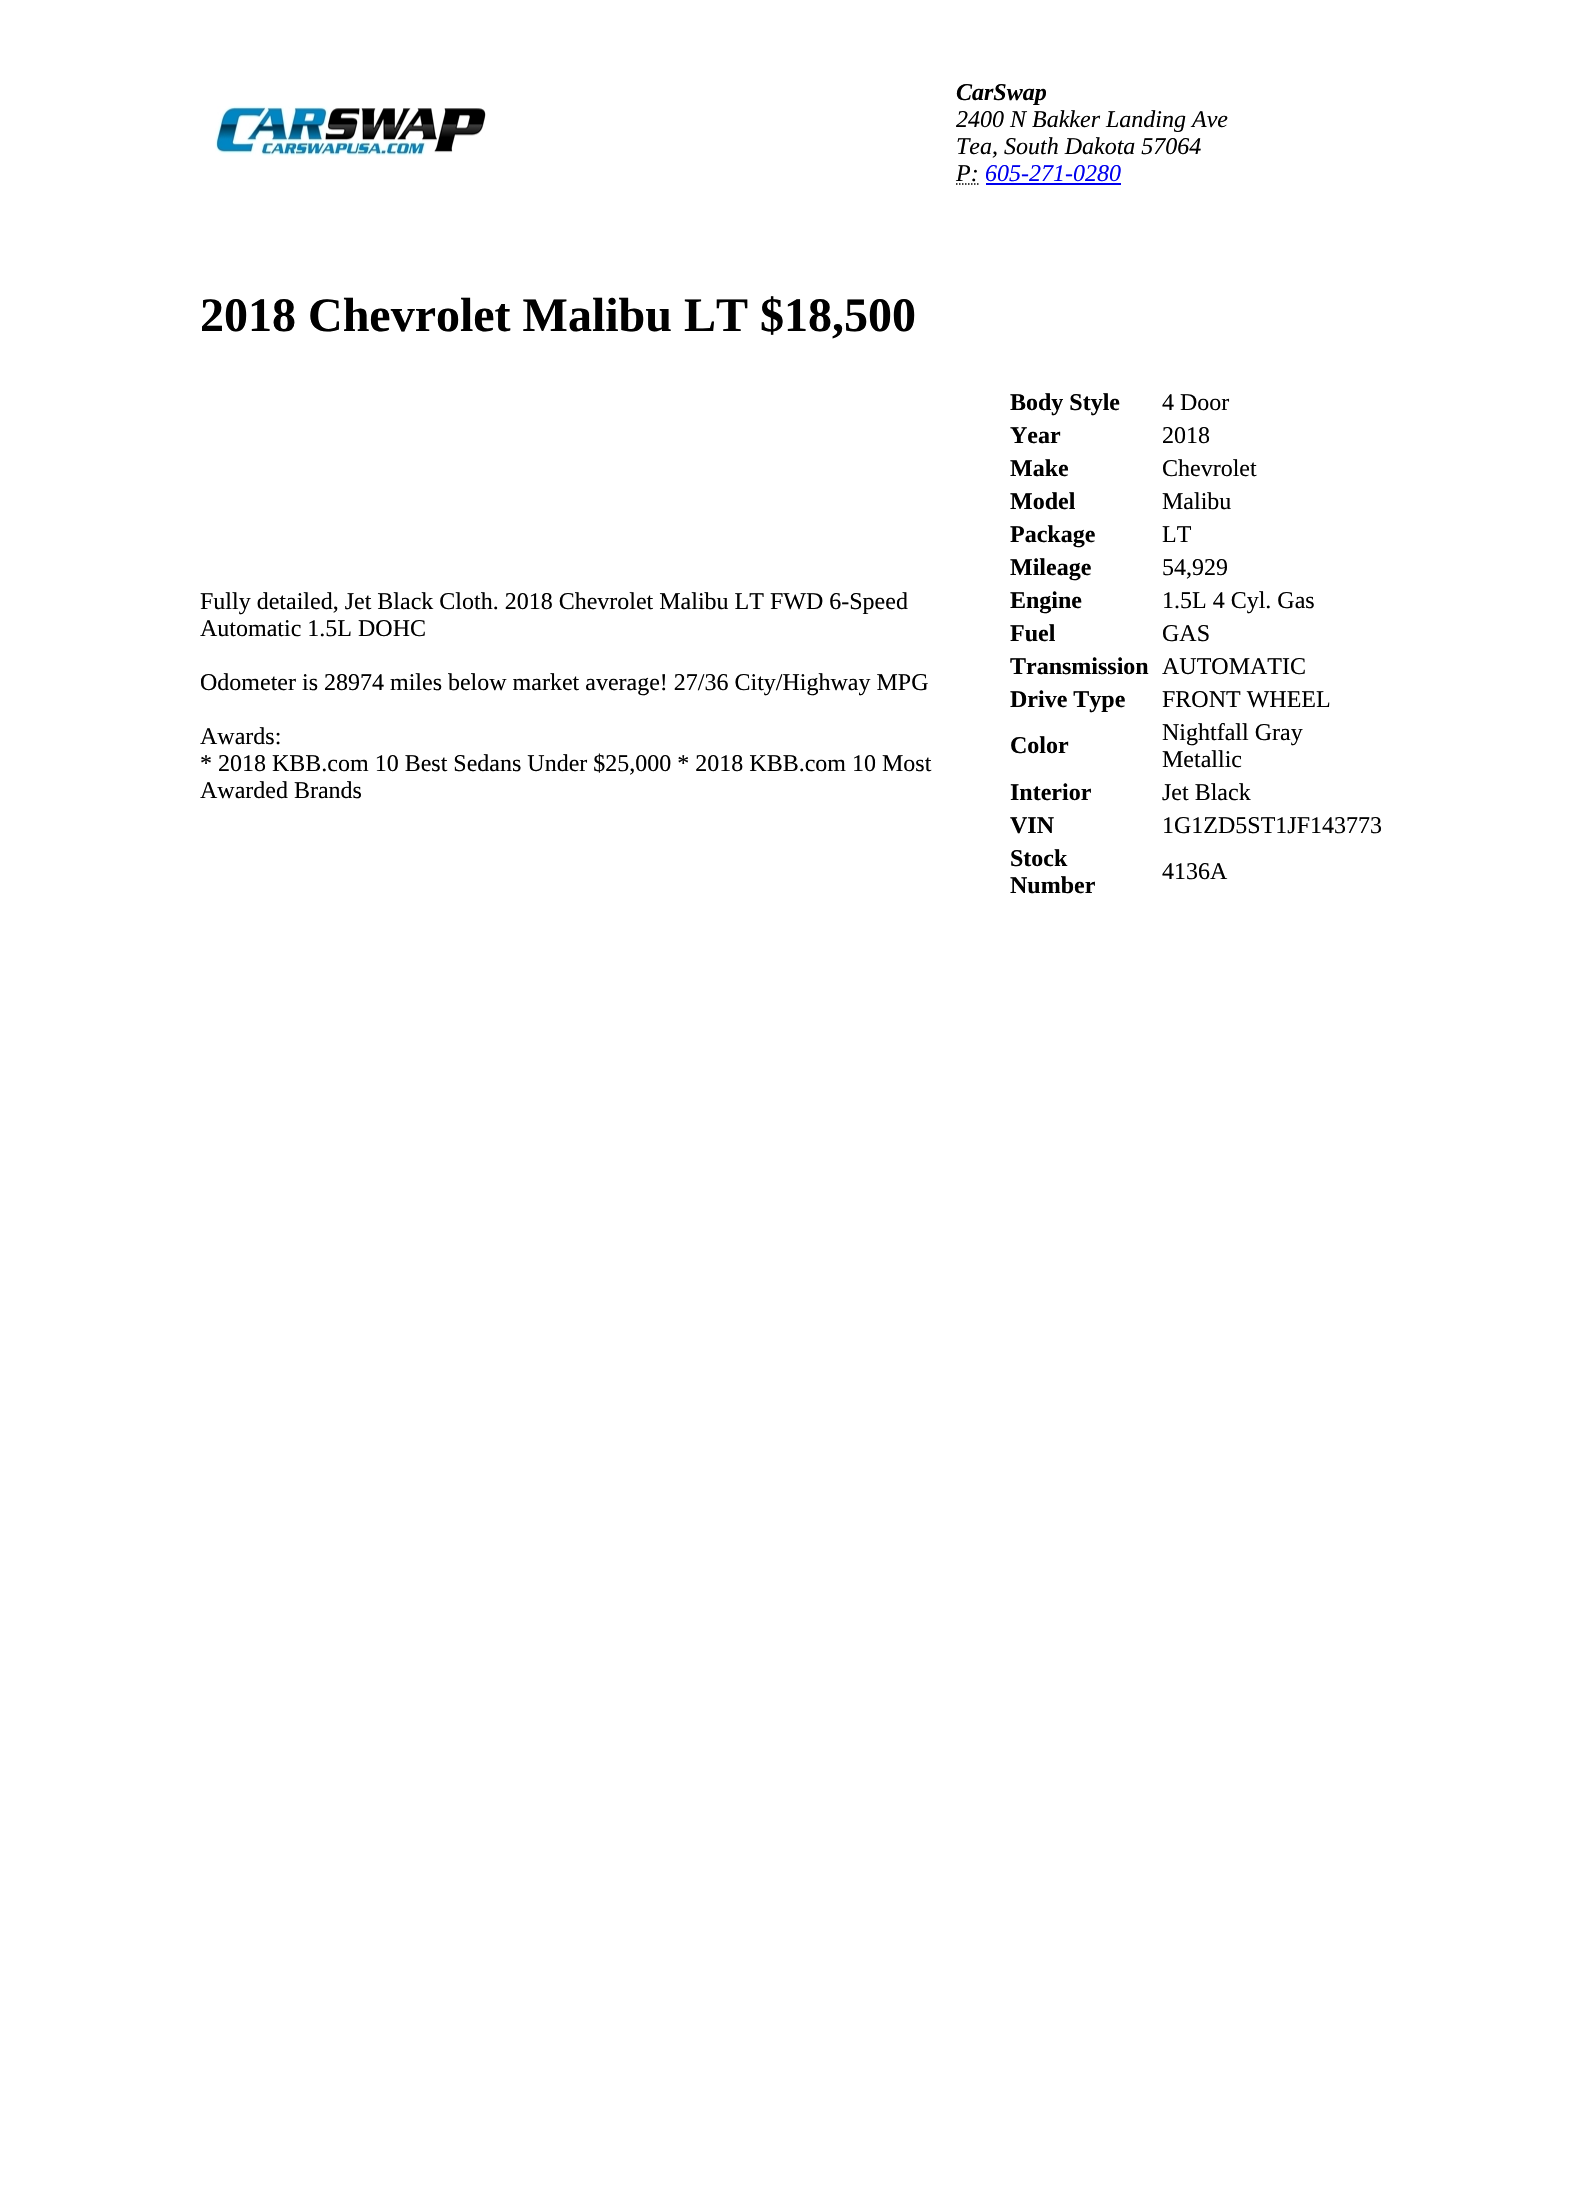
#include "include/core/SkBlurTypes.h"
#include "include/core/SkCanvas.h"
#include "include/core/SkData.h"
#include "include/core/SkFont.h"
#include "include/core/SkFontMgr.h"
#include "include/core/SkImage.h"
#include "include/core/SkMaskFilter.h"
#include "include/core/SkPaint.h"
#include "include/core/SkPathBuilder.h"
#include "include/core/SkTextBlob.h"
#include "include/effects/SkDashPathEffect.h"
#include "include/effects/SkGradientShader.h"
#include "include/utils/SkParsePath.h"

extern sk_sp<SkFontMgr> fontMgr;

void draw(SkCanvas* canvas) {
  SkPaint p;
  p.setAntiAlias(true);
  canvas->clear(SK_ColorWHITE);
  canvas->drawImageRect(SkImages::DeferredFromEncodedData(SkData::MakeFromFileName("images/1.png")), SkRect::MakeLTRB(215, 106, 486, 156), SkSamplingOptions());
  p.setStyle(SkPaint::kStroke_Style);
  p.setStrokeWidth(1.5f);
  p.setColor(SK_ColorBLACK);
  p.setPathEffect(SkDashPathEffect::Make({{1.5f, 1.5f}}, 0));
  canvas->drawPath(SkPathBuilder().moveTo(956, 184).lineTo(979, 184).detach(), p);
  p.setPathEffect(nullptr);
  p.setStyle(SkPaint::kFill_Style);
  p.setColor(SkColorSetRGB(0, 0, 238));
  canvas->drawRect(SkRect::MakeLTRB(986, 183, 1121, 185), p);
  SkFont font1(fontMgr->matchFamilyStyle("Liberation Serif", SkFontStyle::BoldItalic()), 24);
  font1.setSubpixel(true);
  p.setColor(SK_ColorBLACK);
  canvas->drawString("CarSwap", 956, 100, font1, p);
  SkFont font2(fontMgr->matchFamilyStyle("Liberation Serif", SkFontStyle::Italic()), 24);
  font2.setSubpixel(true);
  canvas->drawString("2400 N Bakker Landing Ave", 956, 127, font2, p);
  canvas->drawString("Tea, South Dakota 57064", 956, 154, font2, p);
  canvas->drawString("P:", 956, 181, font2, p);
  p.setColor(SkColorSetRGB(0, 0, 238));
  canvas->drawString("605-271-0280", 985, 181, font2, p);
  SkFont font3(fontMgr->matchFamilyStyle("Liberation Serif", SkFontStyle::Bold()), 48);
  font3.setSubpixel(true);
  p.setColor(SK_ColorBLACK);
  canvas->drawString("2018 Chevrolet Malibu LT $18,500", 200, 331, font3, p);
  SkFont font4(fontMgr->matchFamilyStyle("Liberation Serif", SkFontStyle::Normal()), 24);
  font4.setSubpixel(true);
  canvas->drawString("Fully detailed, Jet Black Cloth. 2018 Chevrolet Malibu LT FWD 6-Speed", 200, 609, font4, p);
  canvas->drawString("Automatic 1.5L DOHC", 200, 636, font4, p);
  canvas->drawString("Odometer is 28974 miles below market average! 27/36 City/Highway MPG", 200, 690, font4, p);
  canvas->drawString("Awards:", 200, 744, font4, p);
  canvas->drawString("* 2018 KBB.com 10 Best Sedans Under $25,000 * 2018 KBB.com 10 Most", 200, 771, font4, p);
  canvas->drawString("Awarded Brands", 200, 798, font4, p);
  SkFont font5(fontMgr->matchFamilyStyle("Liberation Serif", SkFontStyle::Bold()), 24);
  font5.setSubpixel(true);
  canvas->drawString("Body Style", 1010, 410, font5, p);
  canvas->drawString("4 Door", 1162, 410, font4, p);
  canvas->drawString("Year", 1010, 443, font5, p);
  canvas->drawString("2018", 1162, 443, font4, p);
  canvas->drawString("Make", 1010, 476, font5, p);
  canvas->drawString("Chevrolet", 1162, 476, font4, p);
  canvas->drawString("Model", 1010, 509, font5, p);
  canvas->drawString("Malibu", 1162, 509, font4, p);
  canvas->drawString("Package", 1010, 542, font5, p);
  canvas->drawString("LT", 1162, 542, font4, p);
  canvas->drawString("Mileage", 1010, 575, font5, p);
  canvas->drawString("54,929", 1162, 575, font4, p);
  canvas->drawString("Engine", 1010, 608, font5, p);
  canvas->drawString("1.5L 4 Cyl. Gas", 1162, 608, font4, p);
  canvas->drawString("Fuel", 1010, 641, font5, p);
  canvas->drawString("GAS", 1162, 641, font4, p);
  canvas->drawString("Transmission", 1010, 674, font5, p);
  canvas->drawString("AUTOMATIC", 1162, 674, font4, p);
  canvas->drawString("Drive Type", 1010, 707, font5, p);
  canvas->drawString("FRONT WHEEL", 1162, 707, font4, p);
  canvas->drawString("Color", 1010, 753, font5, p);
  canvas->drawString("Nightfall Gray", 1162, 740, font4, p);
  canvas->drawString("Metallic", 1162, 767, font4, p);
  canvas->drawString("Interior", 1010, 800, font5, p);
  canvas->drawString("Jet Black", 1162, 800, font4, p);
  canvas->drawString("VIN", 1010, 833, font5, p);
  canvas->drawString("1G1ZD5ST1JF143773", 1162, 833, font4, p);
  canvas->drawString("Stock", 1010, 866, font5, p);
  canvas->drawString("Number", 1010, 893, font5, p);
  canvas->drawString("4136A", 1162, 879, font4, p);
}
